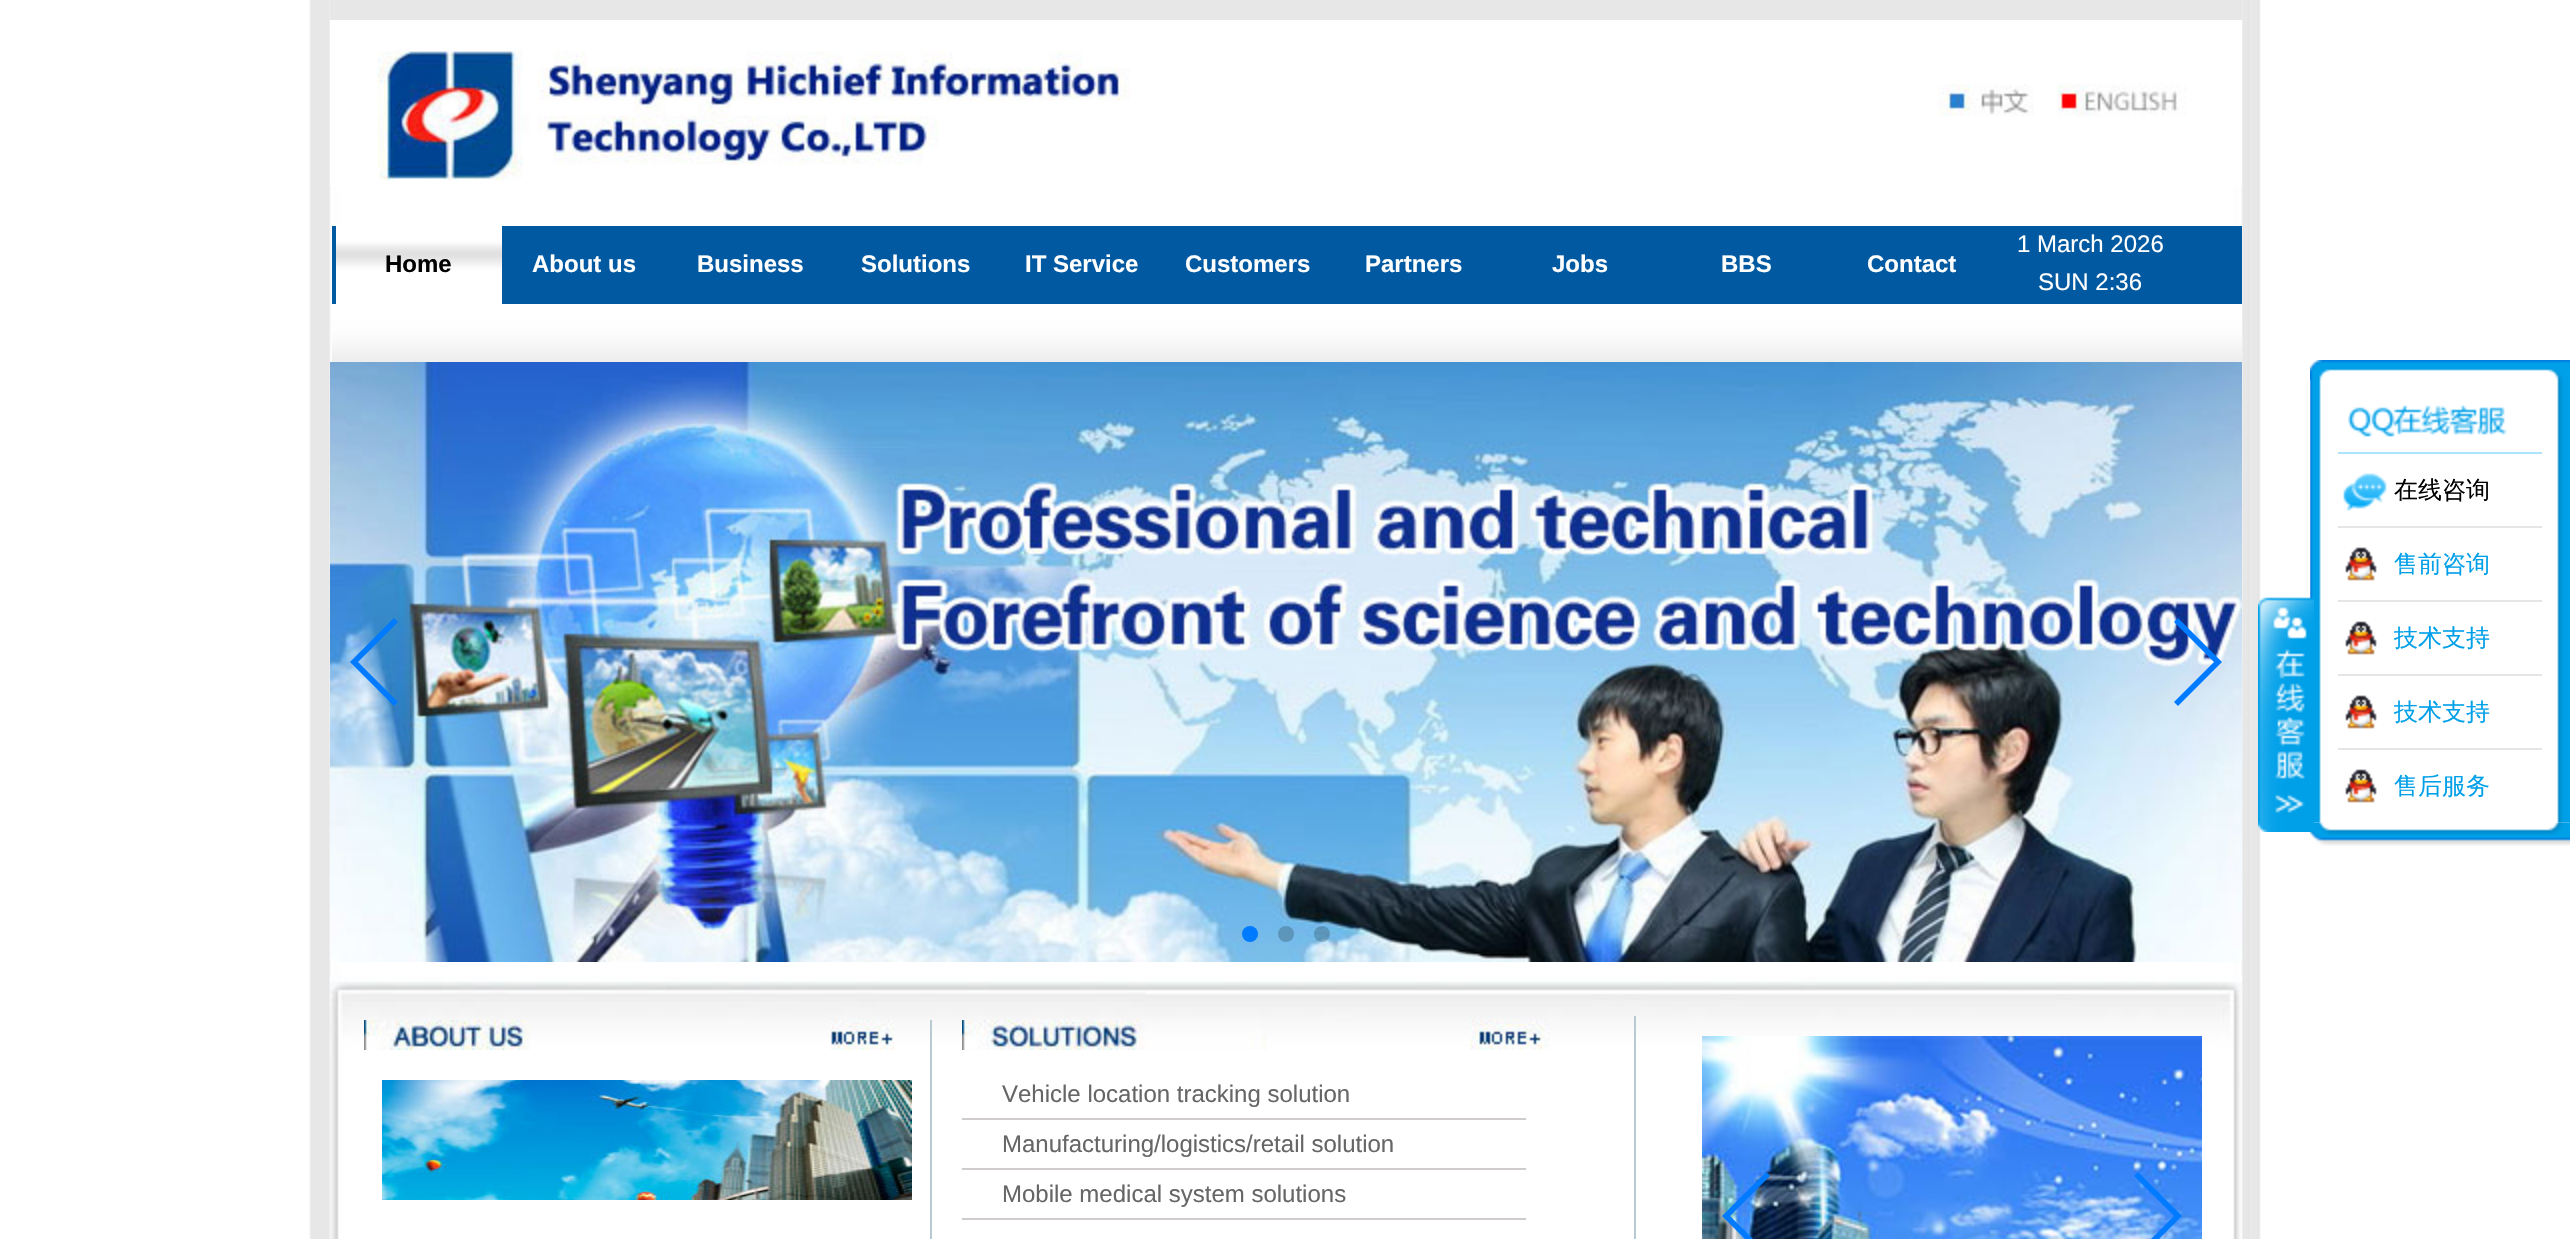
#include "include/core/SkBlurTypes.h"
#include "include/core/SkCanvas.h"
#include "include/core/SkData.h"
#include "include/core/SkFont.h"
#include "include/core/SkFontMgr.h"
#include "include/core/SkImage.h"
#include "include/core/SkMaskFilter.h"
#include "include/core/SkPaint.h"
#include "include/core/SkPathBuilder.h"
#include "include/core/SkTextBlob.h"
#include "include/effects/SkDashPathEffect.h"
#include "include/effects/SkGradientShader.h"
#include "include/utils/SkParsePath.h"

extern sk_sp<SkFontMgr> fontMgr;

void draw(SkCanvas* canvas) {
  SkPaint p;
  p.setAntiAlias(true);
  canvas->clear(SK_ColorWHITE);
  canvas->drawImageRect(SkImages::DeferredFromEncodedData(SkData::MakeFromFileName("images/1.png")), SkRect::MakeLTRB(309, 0, 2261, 1239), SkSamplingOptions());
  p.setColor(SkColorSetRGB(231, 231, 231));
  canvas->drawRect(SkRect::MakeLTRB(330, 0, 2242, 20), p);
  canvas->drawImageRect(SkImages::DeferredFromEncodedData(SkData::MakeFromFileName("images/2.png")), SkRect::MakeLTRB(330, 20, 1130, 186), SkSamplingOptions());
  canvas->drawImageRect(SkImages::DeferredFromEncodedData(SkData::MakeFromFileName("images/3.png")), SkRect::MakeLTRB(1938, 84, 2034, 116), SkSamplingOptions());
  canvas->drawImageRect(SkImages::DeferredFromEncodedData(SkData::MakeFromFileName("images/4.png")), SkRect::MakeLTRB(2057, 20, 2242, 186), SkSamplingOptions());
  p.setColor(SkColorSetRGB(1, 89, 161));
  canvas->drawRect(SkRect::MakeLTRB(332, 226, 2242, 304), p);
  canvas->drawImageRect(SkImages::DeferredFromEncodedData(SkData::MakeFromFileName("images/5.png")), SkRect::MakeLTRB(336, 226, 502, 304), SkSamplingOptions());
  canvas->drawImageRect(SkImages::DeferredFromEncodedData(SkData::MakeFromFileName("images/6.png")), SkRect::MakeLTRB(332, 304, 2242, 360), SkSamplingOptions());
  p.setColor(SkColorSetRGB(238, 238, 238));
  canvas->drawRect(SkRect::MakeLTRB(332, 360, 2242, 362), p);
  canvas->drawImageRect(SkImages::DeferredFromEncodedData(SkData::MakeFromFileName("images/7.png")), SkRect::MakeLTRB(330, 362, 2242, 962), SkSamplingOptions());
  p.setColor(SkColorSetRGB(0, 122, 255));
  canvas->drawPath(SkPathBuilder().moveTo(350, 662).lineTo(394, 618).lineTo(398, 622).lineTo(358, 662).lineTo(398, 702).lineTo(394, 706).close().detach(), p);
  canvas->drawPath(SkPathBuilder().moveTo(2222, 662).lineTo(2178, 706).lineTo(2174, 702).lineTo(2214, 662).lineTo(2174, 622).lineTo(2178, 618).close().detach(), p);
  canvas->drawCircle(1250, 934, 8, p);
  p.setColor(SkColorSetARGB(51, 0, 0, 0));
  canvas->drawCircle(1286, 934, 8, p);
  canvas->drawCircle(1322, 934, 8, p);
  canvas->drawImageRect(SkImages::DeferredFromEncodedData(SkData::MakeFromFileName("images/9.png")), SkRect::MakeLTRB(2310, 822, 2570, 846), SkSamplingOptions());
  canvas->drawImageRect(SkImages::DeferredFromEncodedData(SkData::MakeFromFileName("images/11.png")), SkRect::MakeLTRB(2310, 380, 2570, 822), SkSamplingOptions());
  canvas->drawImageRect(SkImages::DeferredFromEncodedData(SkData::MakeFromFileName("images/8.png")), SkRect::MakeLTRB(2258, 597, 2314, 832), SkSamplingOptions());
  canvas->drawImageRect(SkImages::DeferredFromEncodedData(SkData::MakeFromFileName("images/10.png")), SkRect::MakeLTRB(2310, 360, 2570, 380), SkSamplingOptions());
  p.setColor(SkColorSetRGB(172, 229, 249));
  canvas->drawRect(SkRect::MakeLTRB(2338, 452, 2542, 454), p);
  canvas->drawImageRect(SkImages::DeferredFromEncodedData(SkData::MakeFromFileName("images/12.png")), SkRect::MakeLTRB(2348, 405, 2507, 437), SkSamplingOptions());
  p.setColor(SkColorSetRGB(230, 229, 228));
  canvas->drawRect(SkRect::MakeLTRB(2338, 526, 2542, 528), p);
  canvas->drawImageRect(SkImages::DeferredFromEncodedData(SkData::MakeFromFileName("images/13.png")), SkRect::MakeLTRB(2343, 473, 2387, 511), SkSamplingOptions());
  canvas->drawRect(SkRect::MakeLTRB(2338, 600, 2542, 602), p);
  canvas->drawImageRect(SkImages::DeferredFromEncodedData(SkData::MakeFromFileName("images/14.png")), SkRect::MakeLTRB(2345, 547, 2377, 581), SkSamplingOptions());
  canvas->drawRect(SkRect::MakeLTRB(2338, 674, 2542, 676), p);
  canvas->drawImageRect(SkImages::DeferredFromEncodedData(SkData::MakeFromFileName("images/14.png")), SkRect::MakeLTRB(2345, 621, 2377, 655), SkSamplingOptions());
  canvas->drawRect(SkRect::MakeLTRB(2338, 748, 2542, 750), p);
  canvas->drawImageRect(SkImages::DeferredFromEncodedData(SkData::MakeFromFileName("images/14.png")), SkRect::MakeLTRB(2345, 695, 2377, 729), SkSamplingOptions());
  canvas->drawImageRect(SkImages::DeferredFromEncodedData(SkData::MakeFromFileName("images/14.png")), SkRect::MakeLTRB(2345, 769, 2377, 803), SkSamplingOptions());
  canvas->drawImageRect(SkImages::DeferredFromEncodedData(SkData::MakeFromFileName("images/15.png")), SkRect::MakeLTRB(330, 976, 2242, 1239), SkSamplingOptions());
  p.setColor(SkColorSetRGB(183, 202, 208));
  canvas->drawRect(SkRect::MakeLTRB(930, 1020, 932, 1239), p);
  canvas->drawImageRect(SkImages::DeferredFromEncodedData(SkData::MakeFromFileName("images/16.png")), SkRect::MakeLTRB(364, 1020, 530, 1050), SkSamplingOptions());
  canvas->drawImageRect(SkImages::DeferredFromEncodedData(SkData::MakeFromFileName("images/17.png")), SkRect::MakeLTRB(830, 1020, 895, 1050), SkSamplingOptions());
  canvas->drawImageRect(SkImages::DeferredFromEncodedData(SkData::MakeFromFileName("images/18.png")), SkRect::MakeLTRB(382, 1080, 912, 1200), SkSamplingOptions());
  canvas->drawImageRect(SkImages::DeferredFromEncodedData(SkData::MakeFromFileName("images/19.png")), SkRect::MakeLTRB(962, 1020, 1266, 1050), SkSamplingOptions());
  canvas->drawImageRect(SkImages::DeferredFromEncodedData(SkData::MakeFromFileName("images/20.png")), SkRect::MakeLTRB(1470, 1020, 1550, 1050), SkSamplingOptions());
  p.setColor(SkColorSetRGB(208, 204, 204));
  canvas->drawRect(SkRect::MakeLTRB(962, 1118, 1526, 1120), p);
  canvas->drawRect(SkRect::MakeLTRB(962, 1168, 1526, 1170), p);
  canvas->drawRect(SkRect::MakeLTRB(962, 1218, 1526, 1220), p);
  p.setColor(SkColorSetRGB(183, 202, 208));
  canvas->drawRect(SkRect::MakeLTRB(1634, 1016, 1636, 1239), p);
  canvas->drawImageRect(SkImages::DeferredFromEncodedData(SkData::MakeFromFileName("images/21.png")), SkRect::MakeLTRB(1702, 1036, 2202, 1239), SkSamplingOptions());
  p.setColor(SkColorSetRGB(0, 122, 255));
  canvas->drawPath(SkPathBuilder().moveTo(1722, 1216).lineTo(1766, 1172).lineTo(1770, 1176).lineTo(1730, 1216).lineTo(1770, 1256).lineTo(1766, 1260).close().detach(), p);
  canvas->drawPath(SkPathBuilder().moveTo(2182, 1216).lineTo(2138, 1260).lineTo(2134, 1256).lineTo(2174, 1216).lineTo(2134, 1176).lineTo(2138, 1172).close().detach(), p);
  SkFont font1(fontMgr->matchFamilyStyle("Liberation Sans", SkFontStyle::Bold()), 24);
  font1.setSubpixel(true);
  p.setColor(SK_ColorBLACK);
  canvas->drawString("Home", 385, 272, font1, p);
  p.setColor(SK_ColorWHITE);
  canvas->drawString("About us", 532, 272, font1, p);
  canvas->drawString("Business", 697, 272, font1, p);
  canvas->drawString("Solutions", 861, 272, font1, p);
  canvas->drawString("IT Service", 1025, 272, font1, p);
  canvas->drawString("Customers", 1185, 272, font1, p);
  canvas->drawString("Partners", 1365, 272, font1, p);
  canvas->drawString("Jobs", 1552, 272, font1, p);
  canvas->drawString("BBS", 1721, 272, font1, p);
  canvas->drawString("Contact", 1867, 272, font1, p);
  SkFont font2(fontMgr->matchFamilyStyle("Liberation Sans", SkFontStyle::Normal()), 24);
  font2.setSubpixel(true);
  canvas->drawString("1 March 2026", 2017, 252, font2, p);
  canvas->drawString("SUN 2:36", 2038, 290, font2, p);
  SkFont font3(fontMgr->matchFamilyStyle("WenQuanYi Zen Hei", SkFontStyle(500, SkFontStyle::kNormal_Width, SkFontStyle::kUpright_Slant)), 24);
  font3.setSubpixel(true);
  p.setColor(SK_ColorBLACK);
  canvas->drawString("在线咨询", 2394, 498, font3, p);
  p.setColor(SkColorSetRGB(0, 160, 233));
  canvas->drawString("售前咨询", 2394, 572, font3, p);
  canvas->drawString("技术支持", 2394, 646, font3, p);
  canvas->drawString("技术支持", 2394, 720, font3, p);
  canvas->drawString("售后服务", 2394, 794, font3, p);
  p.setColor(SkColorSetRGB(102, 102, 102));
  canvas->drawString("Vehicle location tracking solution", 1002, 1102, font2, p);
  canvas->drawString("Manufacturing/logistics/retail solution", 1002, 1152, font2, p);
  canvas->drawString("Mobile medical system solutions", 1002, 1202, font2, p);
}
